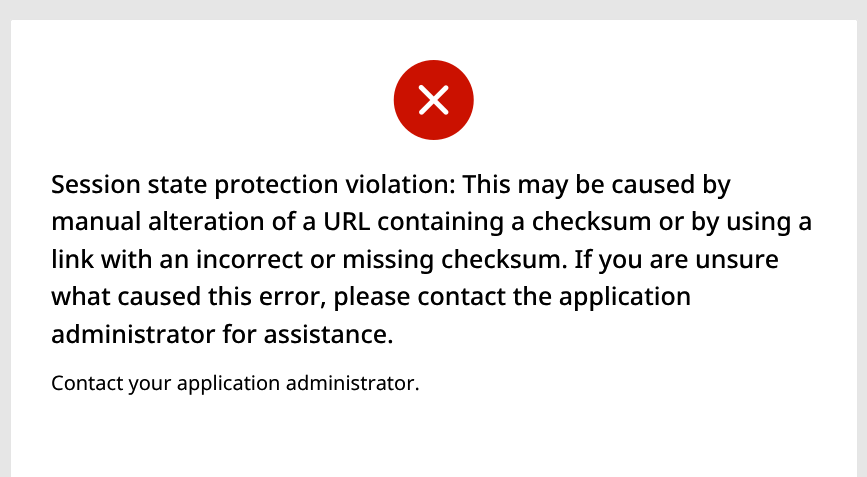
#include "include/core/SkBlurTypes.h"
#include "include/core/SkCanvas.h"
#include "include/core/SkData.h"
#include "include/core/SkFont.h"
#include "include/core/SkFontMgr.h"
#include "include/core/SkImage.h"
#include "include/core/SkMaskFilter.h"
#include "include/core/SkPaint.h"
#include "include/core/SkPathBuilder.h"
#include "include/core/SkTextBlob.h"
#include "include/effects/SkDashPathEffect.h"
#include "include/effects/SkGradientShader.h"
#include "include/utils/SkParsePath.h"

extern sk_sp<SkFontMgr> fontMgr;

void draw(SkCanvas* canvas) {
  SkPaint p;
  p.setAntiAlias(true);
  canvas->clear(SkColorSetRGB(230, 230, 230));
  p.setColor(SK_ColorWHITE);
  canvas->drawRoundRect(SkRect::MakeLTRB(10, 19, 858, 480), 2.5f, 2.5f, p);
  p.setStyle(SkPaint::kStroke_Style);
  p.setStrokeWidth(1);
  p.setColor(SkColorSetARGB(26, 0, 0, 0));
  canvas->drawRoundRect(SkRect::MakeLTRB(10.5f, 19.5f, 857.5f, 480.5f), 2, 2, p);
  canvas->drawImageRect(SkImages::DeferredFromEncodedData(SkData::MakeFromFileName("images/1.png")), SkRect::MakeLTRB(393, 60, 474, 140), SkSamplingOptions());
  SkFont font1(fontMgr->matchFamilyStyle("Noto Sans", SkFontStyle(500, SkFontStyle::kNormal_Width, SkFontStyle::kUpright_Slant)), 25);
  font1.setSubpixel(true);
  p.setStyle(SkPaint::kFill_Style);
  p.setColor(SK_ColorBLACK);
  canvas->drawString("Session state protection violation: This may be caused by", 51, 193, font1, p);
  canvas->drawString("manual alteration of a URL containing a checksum or by using a", 51, 230, font1, p);
  canvas->drawString("link with an incorrect or missing checksum. If you are unsure", 51, 268, font1, p);
  canvas->drawString("what caused this error, please contact the application", 51, 305, font1, p);
  canvas->drawString("administrator for assistance.", 51, 343, font1, p);
  SkFont font2(fontMgr->matchFamilyStyle("Noto Sans", SkFontStyle::Normal()), 20);
  font2.setSubpixel(true);
  canvas->drawString("Contact your application administrator.", 51, 390, font2, p);
}
